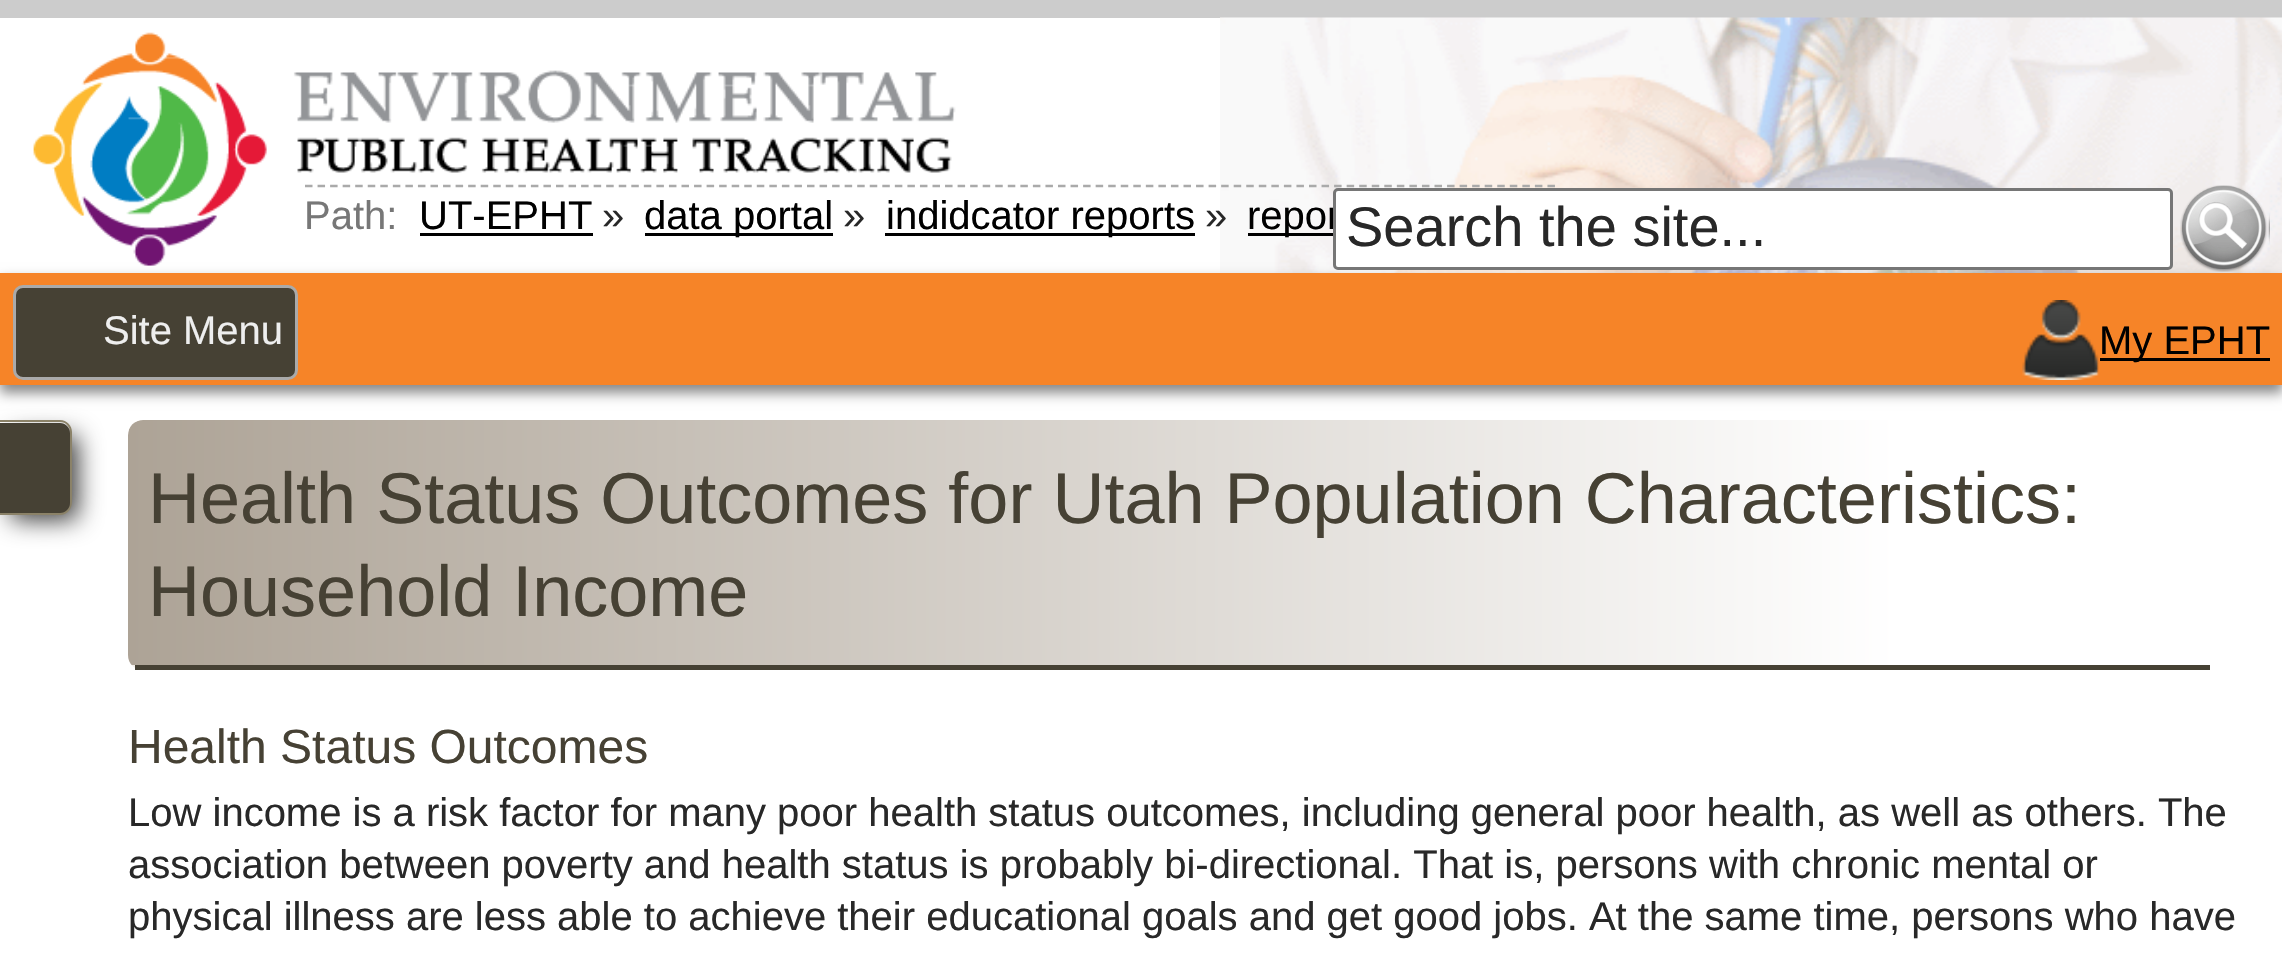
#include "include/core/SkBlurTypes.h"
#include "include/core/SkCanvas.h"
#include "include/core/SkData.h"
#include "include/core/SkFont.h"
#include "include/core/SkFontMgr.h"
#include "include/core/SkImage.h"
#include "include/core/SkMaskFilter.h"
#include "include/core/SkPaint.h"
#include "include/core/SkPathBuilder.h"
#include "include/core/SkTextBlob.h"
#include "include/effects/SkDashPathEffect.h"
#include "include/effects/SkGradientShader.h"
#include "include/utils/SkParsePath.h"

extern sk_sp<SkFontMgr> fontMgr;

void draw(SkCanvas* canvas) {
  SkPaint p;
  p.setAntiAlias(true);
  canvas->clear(SkColorSetRGB(204, 204, 204));
  p.setColor(SK_ColorWHITE);
  canvas->drawRect(SkRect::MakeLTRB(0, 18, 1220, 273), p);
  canvas->drawImageRect(SkImages::DeferredFromEncodedData(SkData::MakeFromFileName("images/1.png")), SkRect::MakeLTRB(1220, 17, 2282, 273), SkSamplingOptions());
  canvas->drawImageRect(SkImages::DeferredFromEncodedData(SkData::MakeFromFileName("images/2.png")), SkRect::MakeLTRB(33, 32, 956, 266), SkSamplingOptions());
  p.setStyle(SkPaint::kStroke_Style);
  p.setStrokeWidth(2.5f);
  p.setColor(SkColorSetRGB(170, 170, 170));
  p.setPathEffect(SkDashPathEffect::Make({{7.5f, 5.05f}}, 0));
  canvas->drawPath(SkPathBuilder().moveTo(305, 186).lineTo(1555, 186).detach(), p);
  p.setPathEffect(nullptr);
  p.setStyle(SkPaint::kFill_Style);
  p.setColor(SK_ColorBLACK);
  canvas->drawRect(SkRect::MakeLTRB(420, 233, 593, 236), p);
  canvas->drawRect(SkRect::MakeLTRB(645, 233, 833, 236), p);
  canvas->drawRect(SkRect::MakeLTRB(885, 233, 1195, 236), p);
  canvas->drawRect(SkRect::MakeLTRB(1248, 233, 1333, 236), p);
  p.setColor(SK_ColorWHITE);
  canvas->drawRect(SkRect::MakeLTRB(0, 385, 2282, 972), p);
  p.setColor(SkColorSetRGB(136, 136, 136));
  p.setMaskFilter(SkMaskFilter::MakeBlur(kNormal_SkBlurStyle, 6));
  canvas->drawRect(SkRect::MakeLTRB(0, 280, 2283, 393), p);
  p.setMaskFilter(nullptr);
  p.setColor(SkColorSetRGB(246, 132, 40));
  canvas->drawRect(SkRect::MakeLTRB(0, 273, 2282, 385), p);
  canvas->drawImageRect(SkImages::DeferredFromEncodedData(SkData::MakeFromFileName("images/3.png")), SkRect::MakeLTRB(2180, 185, 2270, 272), SkSamplingOptions());
  p.setColor(SkColorSetRGB(70, 65, 52));
  canvas->drawRoundRect(SkRect::MakeLTRB(14.5f, 286.5f, 296.5f, 378.5f), 8.5f, 8.5f, p);
  p.setStyle(SkPaint::kStroke_Style);
  p.setStrokeWidth(3);
  p.setColor(SkColorSetRGB(170, 170, 170));
  canvas->drawRoundRect(SkRect::MakeLTRB(14.5f, 286.5f, 296.5f, 378.5f), 8.5f, 8.5f, p);
  canvas->drawImageRect(SkImages::DeferredFromEncodedData(SkData::MakeFromFileName("images/4.png")), SkRect::MakeLTRB(2022, 300, 2099, 380), SkSamplingOptions());
  p.setStyle(SkPaint::kFill_Style);
  p.setColor(SK_ColorBLACK);
  canvas->drawRect(SkRect::MakeLTRB(2100, 358, 2270, 361), p);
  p.setColor(SkColorSetARGB(196, 0, 0, 0));
  p.setMaskFilter(SkMaskFilter::MakeBlur(kNormal_SkBlurStyle, 12.5f));
  canvas->drawRoundRect(SkRect::MakeLTRB(10, 435, 78, 520), 8, 8, p);
  p.setMaskFilter(nullptr);
  p.setColor(SkColorSetRGB(139, 130, 104));
  canvas->drawPath(SkPathBuilder(SkPathFillType::kEvenOdd).moveTo(-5, 420).lineTo(60, 420).cubicTo(67, 420, 72, 426, 72, 432).lineTo(72, 502).cubicTo(72, 509, 67, 515, 60, 515).lineTo(-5, 515).close().moveTo(-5, 422).lineTo(60, 422).cubicTo(66, 422, 70, 427, 70, 432).lineTo(70, 502).cubicTo(70, 508, 66, 512, 60, 512).lineTo(-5, 512).close().detach(), p);
  p.setColor(SkColorSetRGB(70, 65, 52));
  canvas->drawPath(SkPathBuilder().moveTo(-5, 423).lineTo(60, 423).cubicTo(65.5f, 423, 70, 427.5f, 70, 433).lineTo(70, 503).cubicTo(70, 508.5f, 65.5f, 513, 60, 513).lineTo(-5, 513).close().detach(), p);
  p.setColor(SkColorSetRGB(242, 237, 232));
  canvas->drawPath(SkPathBuilder().moveTo(143, 420).lineTo(2210, 420).lineTo(2210, 670).lineTo(143, 670).cubicTo(134.5f, 670, 128, 663.5f, 128, 655).lineTo(128, 435).cubicTo(128, 426.5f, 134.5f, 420, 143, 420).close().detach(), p);
  canvas->save();
  canvas->clipPath(SkPathBuilder().moveTo(143, 420).lineTo(2210, 420).lineTo(2210, 670).lineTo(143, 670).cubicTo(134.5f, 670, 128, 663.5f, 128, 655).lineTo(128, 435).cubicTo(128, 426.5f, 134.5f, 420, 143, 420).close().detach(), true);
  {
    const SkColor colors[] = {SK_ColorWHITE, SkColorSetRGB(173, 163, 150)};
    const float stops[] = {0.15f, 1};
    const SkPoint ends[] = {{2210, 420}, {128, 420}};
    p.setShader(SkGradientShader::MakeLinear(ends, colors, stops, 2, SkTileMode::kClamp));
    p.setAlpha(255);
  }
  canvas->drawPath(SkPathBuilder().moveTo(143, 420).lineTo(2210, 420).lineTo(2210, 665).lineTo(128, 665).lineTo(128, 435).cubicTo(128, 426.5f, 134.5f, 420, 143, 420).close().detach(), p);
  canvas->restore();
  p.setShader(nullptr);
  p.setColor(SkColorSetRGB(70, 65, 52));
  canvas->drawRect(SkRect::MakeLTRB(135, 665, 2210, 670), p);
  SkFont font1(fontMgr->matchFamilyStyle("Liberation Sans", SkFontStyle::Normal()), 40);
  font1.setSubpixel(true);
  p.setColor(SkColorSetRGB(119, 119, 119));
  canvas->drawString("Path:", 304, 229, font1, p);
  p.setColor(SK_ColorBLACK);
  canvas->drawString("UT-EPHT", 419, 229, font1, p);
  p.setColor(SkColorSetRGB(40, 40, 40));
  canvas->drawString("»", 602, 229, font1, p);
  p.setColor(SK_ColorBLACK);
  canvas->drawString("data portal", 644, 229, font1, p);
  p.setColor(SkColorSetRGB(40, 40, 40));
  canvas->drawString("»", 843, 229, font1, p);
  p.setColor(SK_ColorBLACK);
  canvas->drawString("indidcator reports", 886, 229, font1, p);
  p.setColor(SkColorSetRGB(40, 40, 40));
  canvas->drawString("»", 1205, 229, font1, p);
  p.setColor(SK_ColorBLACK);
  canvas->drawString("repor", 1247, 229, font1, p);
  p.setColor(SK_ColorWHITE);
  canvas->drawRoundRect(SkRect::MakeLTRB(1334.5f, 189.5f, 2171.5f, 268.5f), 3.5f, 3.5f, p);
  p.setStyle(SkPaint::kStroke_Style);
  p.setColor(SkColorSetRGB(118, 118, 118));
  canvas->drawRoundRect(SkRect::MakeLTRB(1334.5f, 189.5f, 2171.5f, 268.5f), 3.5f, 3.5f, p);
  SkFont font2(fontMgr->matchFamilyStyle("Liberation Sans", SkFontStyle::Normal()), 56);
  font2.setSubpixel(true);
  p.setStyle(SkPaint::kFill_Style);
  p.setColor(SkColorSetRGB(40, 40, 40));
  canvas->drawString("Search the site...", 1346, 246, font2, p);
  p.setColor(SkColorSetRGB(238, 238, 238));
  canvas->drawString("Site Menu", 103, 344, font1, p);
  p.setColor(SK_ColorBLACK);
  canvas->drawString("My EPHT", 2099, 354, font1, p);
  SkFont font3(fontMgr->matchFamilyStyle("Liberation Sans", SkFontStyle::Normal()), 72);
  font3.setSubpixel(true);
  p.setColor(SkColorSetRGB(70, 65, 52));
  canvas->drawString("Health Status Outcomes for Utah Population Characteristics:", 148, 523, font3, p);
  canvas->drawString("Household Income", 148, 616, font3, p);
  SkFont font4(fontMgr->matchFamilyStyle("Liberation Sans", SkFontStyle::Normal()), 48);
  font4.setSubpixel(true);
  canvas->drawString("Health Status Outcomes", 128, 763, font4, p);
  p.setColor(SkColorSetRGB(40, 40, 40));
  canvas->drawString("Low income is a risk factor for many poor health status outcomes, including general poor health, as well as others. The", 128, 826, font1, p);
  canvas->drawString("association between poverty and health status is probably bi-directional. That is, persons with chronic mental or", 128, 878, font1, p);
  canvas->drawString("physical illness are less able to achieve their educational goals and get good jobs. At the same time, persons who have", 128, 930, font1, p);
}
